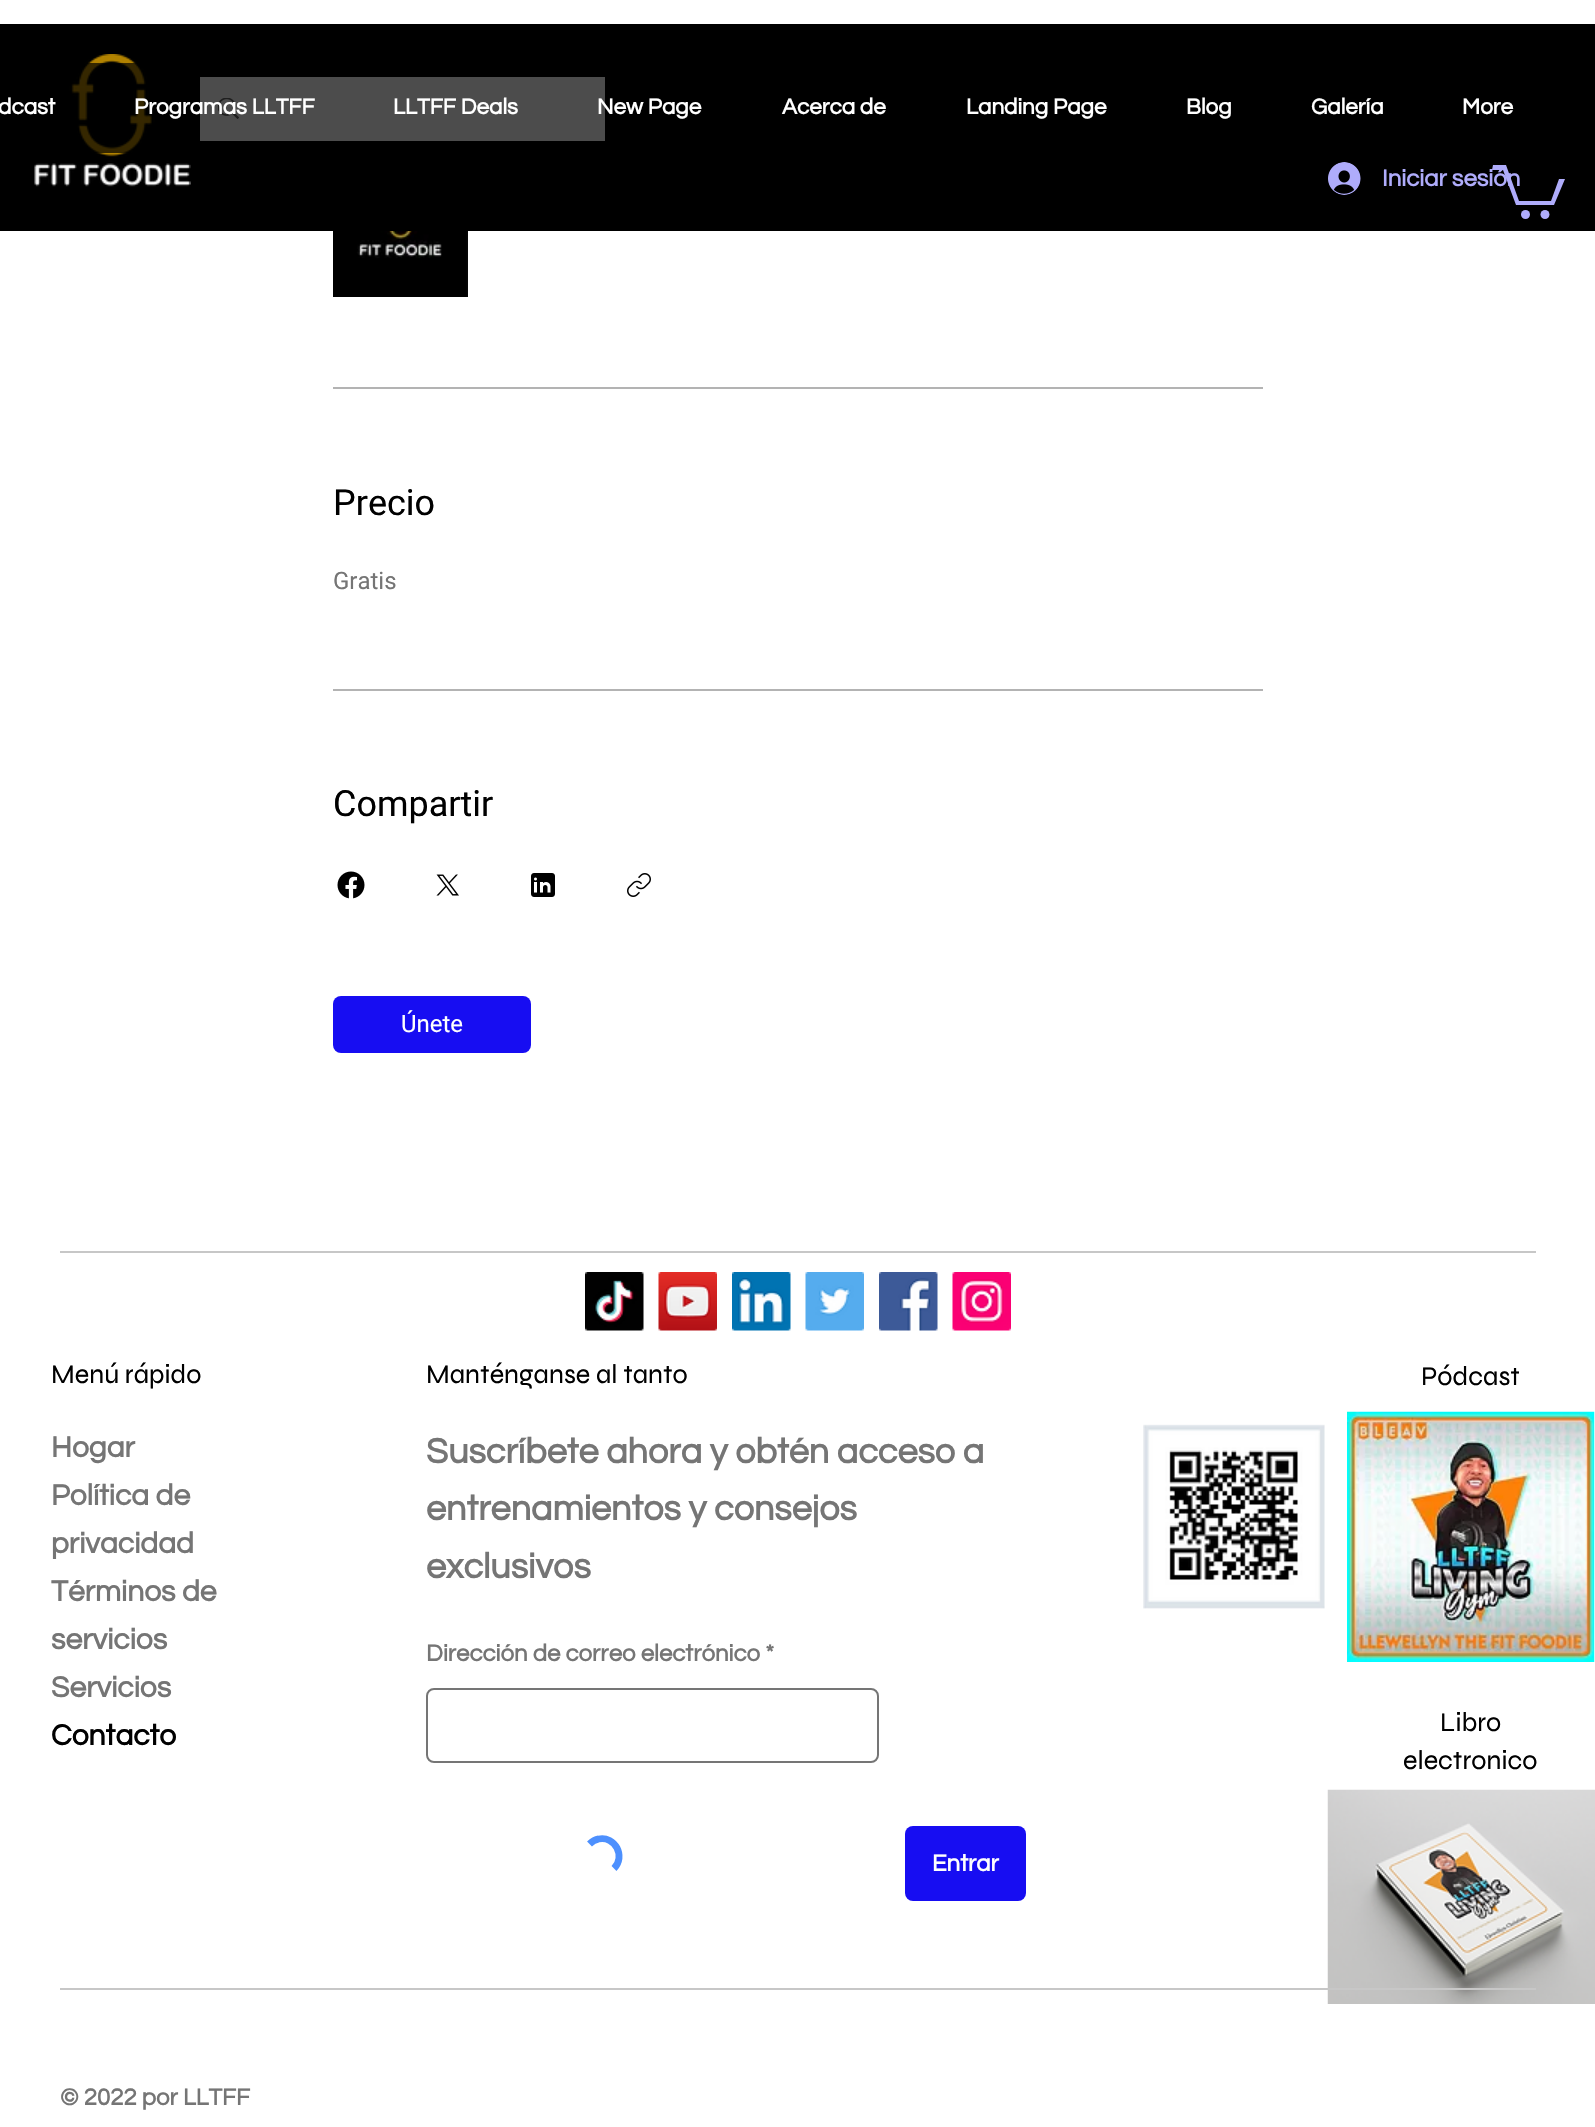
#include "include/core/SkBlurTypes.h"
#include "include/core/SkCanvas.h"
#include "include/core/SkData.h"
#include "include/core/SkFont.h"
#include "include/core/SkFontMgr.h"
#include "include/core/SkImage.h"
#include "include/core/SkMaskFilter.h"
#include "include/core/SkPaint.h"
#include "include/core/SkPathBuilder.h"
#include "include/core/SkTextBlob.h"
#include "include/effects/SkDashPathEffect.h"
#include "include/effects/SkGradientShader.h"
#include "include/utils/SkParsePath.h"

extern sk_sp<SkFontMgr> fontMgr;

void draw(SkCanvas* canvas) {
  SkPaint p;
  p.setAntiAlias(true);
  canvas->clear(SK_ColorWHITE);
  p.setColor(SK_ColorBLACK);
  canvas->drawRect(SkRect::MakeLTRB(0, 24, 1595, 231), p);
  canvas->drawImageRect(SkImages::DeferredFromEncodedData(SkData::MakeFromFileName("images/1.png")), SkRect::MakeLTRB(34, 54, 191, 187), SkSamplingOptions());
  p.setColor(SK_ColorWHITE);
  canvas->drawRect(SkRect::MakeLTRB(200, 77, 605, 141), p);
  canvas->drawImageRect(SkImages::DeferredFromEncodedData(SkData::MakeFromFileName("images/2.png")), SkRect::MakeLTRB(218, 98, 239, 119), SkSamplingOptions());
  p.setColor(SkColorSetARGB(179, 0, 0, 0));
  canvas->drawRoundRect(SkRect::MakeLTRB(-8, 63, 1553, 153), 8, 8, p);
  canvas->drawImageRect(SkImages::DeferredFromEncodedData(SkData::MakeFromFileName("images/3.png")), SkRect::MakeLTRB(1328, 162, 1361, 195), SkSamplingOptions());
  p.setColor(SkColorSetRGB(175, 172, 251));
  canvas->drawPath(SkPathBuilder().moveTo(1565, 179).lineTo(1554, 205).lineTo(1516, 205).lineTo(1503, 170).lineTo(1492, 170).lineTo(1493, 165).lineTo(1506, 165).lineTo(1519, 201).lineTo(1551, 201).lineTo(1559, 179).detach(), p);
  canvas->drawCircle(1545, 214.5f, 4.5f, p);
  canvas->drawCircle(1525.5f, 214.5f, 4.5f, p);
  p.setColor(SkColorSetRGB(179, 179, 179));
  canvas->drawRect(SkRect::MakeLTRB(333, 387, 1263, 389), p);
  canvas->drawImageRect(SkImages::DeferredFromEncodedData(SkData::MakeFromFileName("images/4.png")), SkRect::MakeLTRB(333, 231, 468, 297), SkSamplingOptions());
  canvas->drawRect(SkRect::MakeLTRB(333, 689, 1263, 691), p);
  canvas->drawImageRect(SkImages::DeferredFromEncodedData(SkData::MakeFromFileName("images/5.png")), SkRect::MakeLTRB(337, 871, 365, 899), SkSamplingOptions());
  canvas->drawImageRect(SkImages::DeferredFromEncodedData(SkData::MakeFromFileName("images/6.png")), SkRect::MakeLTRB(436, 874, 459, 896), SkSamplingOptions());
  canvas->drawImageRect(SkImages::DeferredFromEncodedData(SkData::MakeFromFileName("images/7.png")), SkRect::MakeLTRB(531, 873, 555, 897), SkSamplingOptions());
  canvas->drawImageRect(SkImages::DeferredFromEncodedData(SkData::MakeFromFileName("images/8.png")), SkRect::MakeLTRB(627, 873, 651, 897), SkSamplingOptions());
  p.setColor(SkColorSetRGB(23, 13, 242));
  canvas->drawRoundRect(SkRect::MakeLTRB(333, 996, 531, 1053), 8, 8, p);
  p.setColor(SkColorSetRGB(199, 199, 199));
  canvas->drawRect(SkRect::MakeLTRB(60, 1251, 1536, 1253), p);
  canvas->drawImageRect(SkImages::DeferredFromEncodedData(SkData::MakeFromFileName("images/9.png")), SkRect::MakeLTRB(585, 1272, 644, 1331), SkSamplingOptions());
  canvas->drawImageRect(SkImages::DeferredFromEncodedData(SkData::MakeFromFileName("images/10.png")), SkRect::MakeLTRB(658, 1272, 717, 1331), SkSamplingOptions());
  canvas->drawImageRect(SkImages::DeferredFromEncodedData(SkData::MakeFromFileName("images/11.png")), SkRect::MakeLTRB(732, 1272, 791, 1331), SkSamplingOptions());
  canvas->drawImageRect(SkImages::DeferredFromEncodedData(SkData::MakeFromFileName("images/12.png")), SkRect::MakeLTRB(805, 1272, 864, 1331), SkSamplingOptions());
  canvas->drawImageRect(SkImages::DeferredFromEncodedData(SkData::MakeFromFileName("images/13.png")), SkRect::MakeLTRB(879, 1272, 938, 1331), SkSamplingOptions());
  canvas->drawImageRect(SkImages::DeferredFromEncodedData(SkData::MakeFromFileName("images/14.png")), SkRect::MakeLTRB(952, 1272, 1011, 1331), SkSamplingOptions());
  p.setStyle(SkPaint::kStroke_Style);
  p.setStrokeWidth(2);
  p.setColor(SkColorSetRGB(117, 117, 117));
  canvas->drawRoundRect(SkRect::MakeLTRB(427, 1689, 878, 1762), 7, 7, p);
  p.setStrokeWidth(6.9f);
  p.setColor(SkColorSetRGB(77, 144, 254));
  canvas->drawPath(SkPathBuilder().moveTo(589.5f, 1844).cubicTo(592, 1841.5f, 595, 1839.5f, 598.5f, 1839).cubicTo(615, 1835.5f, 626, 1856.5f, 614, 1868.5f).detach(), p);
  p.setStyle(SkPaint::kFill_Style);
  p.setColor(SkColorSetRGB(23, 13, 242));
  canvas->drawRoundRect(SkRect::MakeLTRB(905, 1826, 1026, 1901), 8, 8, p);
  canvas->drawImageRect(SkImages::DeferredFromEncodedData(SkData::MakeFromFileName("images/15.png")), SkRect::MakeLTRB(1143, 1424, 1325, 1609), SkSamplingOptions());
  canvas->drawImageRect(SkImages::DeferredFromEncodedData(SkData::MakeFromFileName("images/16.png")), SkRect::MakeLTRB(1347, 1411, 1595, 1662), SkSamplingOptions());
  canvas->drawImageRect(SkImages::DeferredFromEncodedData(SkData::MakeFromFileName("images/17.png")), SkRect::MakeLTRB(1327, 1789, 1595, 2004), SkSamplingOptions());
  p.setColor(SkColorSetRGB(199, 199, 199));
  canvas->drawRect(SkRect::MakeLTRB(60, 1988, 1536, 1990), p);
  SkFont font1(fontMgr->matchFamilyStyle("Questrial", SkFontStyle::Bold()), 22.5f);
  font1.setSubpixel(true);
  p.setColor(SK_ColorWHITE);
  canvas->drawString("dcast", -2, 114, font1, p);
  canvas->drawString("Programas LLTFF", 134, 114, font1, p);
  canvas->drawString("LLTFF Deals", 393, 114, font1, p);
  canvas->drawString("New Page", 597, 114, font1, p);
  canvas->drawString("Acerca de", 782, 114, font1, p);
  canvas->drawString("Landing Page", 966, 114, font1, p);
  canvas->drawString("Blog", 1186, 114, font1, p);
  canvas->drawString("Galería", 1311, 114, font1, p);
  canvas->drawString("More", 1462, 114, font1, p);
  SkFont font2(fontMgr->matchFamilyStyle("Questrial", SkFontStyle::Bold()), 24);
  font2.setSubpixel(true);
  p.setColor(SkColorSetRGB(175, 172, 251));
  canvas->drawString("Iniciar sesión", 1382, 186, font2, p);
  SkFont font3(fontMgr->matchFamilyStyle("Roboto", SkFontStyle::Normal()), 36);
  font3.setSubpixel(true);
  p.setColor(SK_ColorBLACK);
  canvas->drawString("Precio", 333, 515, font3, p);
  SkFont font4(fontMgr->matchFamilyStyle("Roboto", SkFontStyle::Normal()), 24);
  font4.setSubpixel(true);
  p.setColor(SkColorSetRGB(117, 117, 117));
  canvas->drawString("Gratis", 333, 589, font4, p);
  p.setColor(SK_ColorBLACK);
  canvas->drawString("Compartir", 333, 816, font3, p);
  p.setColor(SK_ColorWHITE);
  canvas->drawString("Únete", 401, 1032, font4, p);
  SkFont font5(fontMgr->matchFamilyStyle("Syne", SkFontStyle::Normal()), 27);
  font5.setSubpixel(true);
  p.setColor(SK_ColorBLACK);
  canvas->drawString("Menú rápido", 51, 1383, font5, p);
  SkFont font6(fontMgr->matchFamilyStyle("Questrial", SkFontStyle::Bold()), 30);
  font6.setSubpixel(true);
  p.setColor(SkColorSetRGB(117, 117, 117));
  canvas->drawString("Hogar", 51, 1457, font6, p);
  canvas->drawString("Política de", 51, 1505, font6, p);
  canvas->drawString("privacidad", 51, 1553, font6, p);
  canvas->drawString("Términos de", 51, 1601, font6, p);
  canvas->drawString("servicios", 51, 1649, font6, p);
  canvas->drawString("Servicios", 51, 1697, font6, p);
  p.setColor(SK_ColorBLACK);
  canvas->drawString("Contacto", 51, 1745, font6, p);
  canvas->drawString("Manténganse al tanto", 426, 1383, font5, p);
  SkFont font7(fontMgr->matchFamilyStyle("Questrial", SkFontStyle::Bold()), 36);
  font7.setSubpixel(true);
  p.setColor(SkColorSetRGB(117, 117, 117));
  canvas->drawString("Suscríbete ahora y obtén acceso a", 426, 1463, font7, p);
  canvas->drawString("entrenamientos y consejos", 426, 1520, font7, p);
  canvas->drawString("exclusivos", 426, 1578, font7, p);
  canvas->drawString("Dirección de correo electrónico *", 426, 1661, font2, p);
  p.setColor(SK_ColorWHITE);
  canvas->drawString("Entrar", 932, 1871, font2, p);
  p.setColor(SK_ColorBLACK);
  canvas->drawString("Pódcast", 1421, 1385, font5, p);
  canvas->drawString("Libro", 1440, 1731, font5, p);
  canvas->drawString("electronico", 1403, 1769, font5, p);
  p.setColor(SkColorSetRGB(117, 117, 117));
  canvas->drawString("© 2022 por LLTFF", 60, 2105, font2, p);
}
